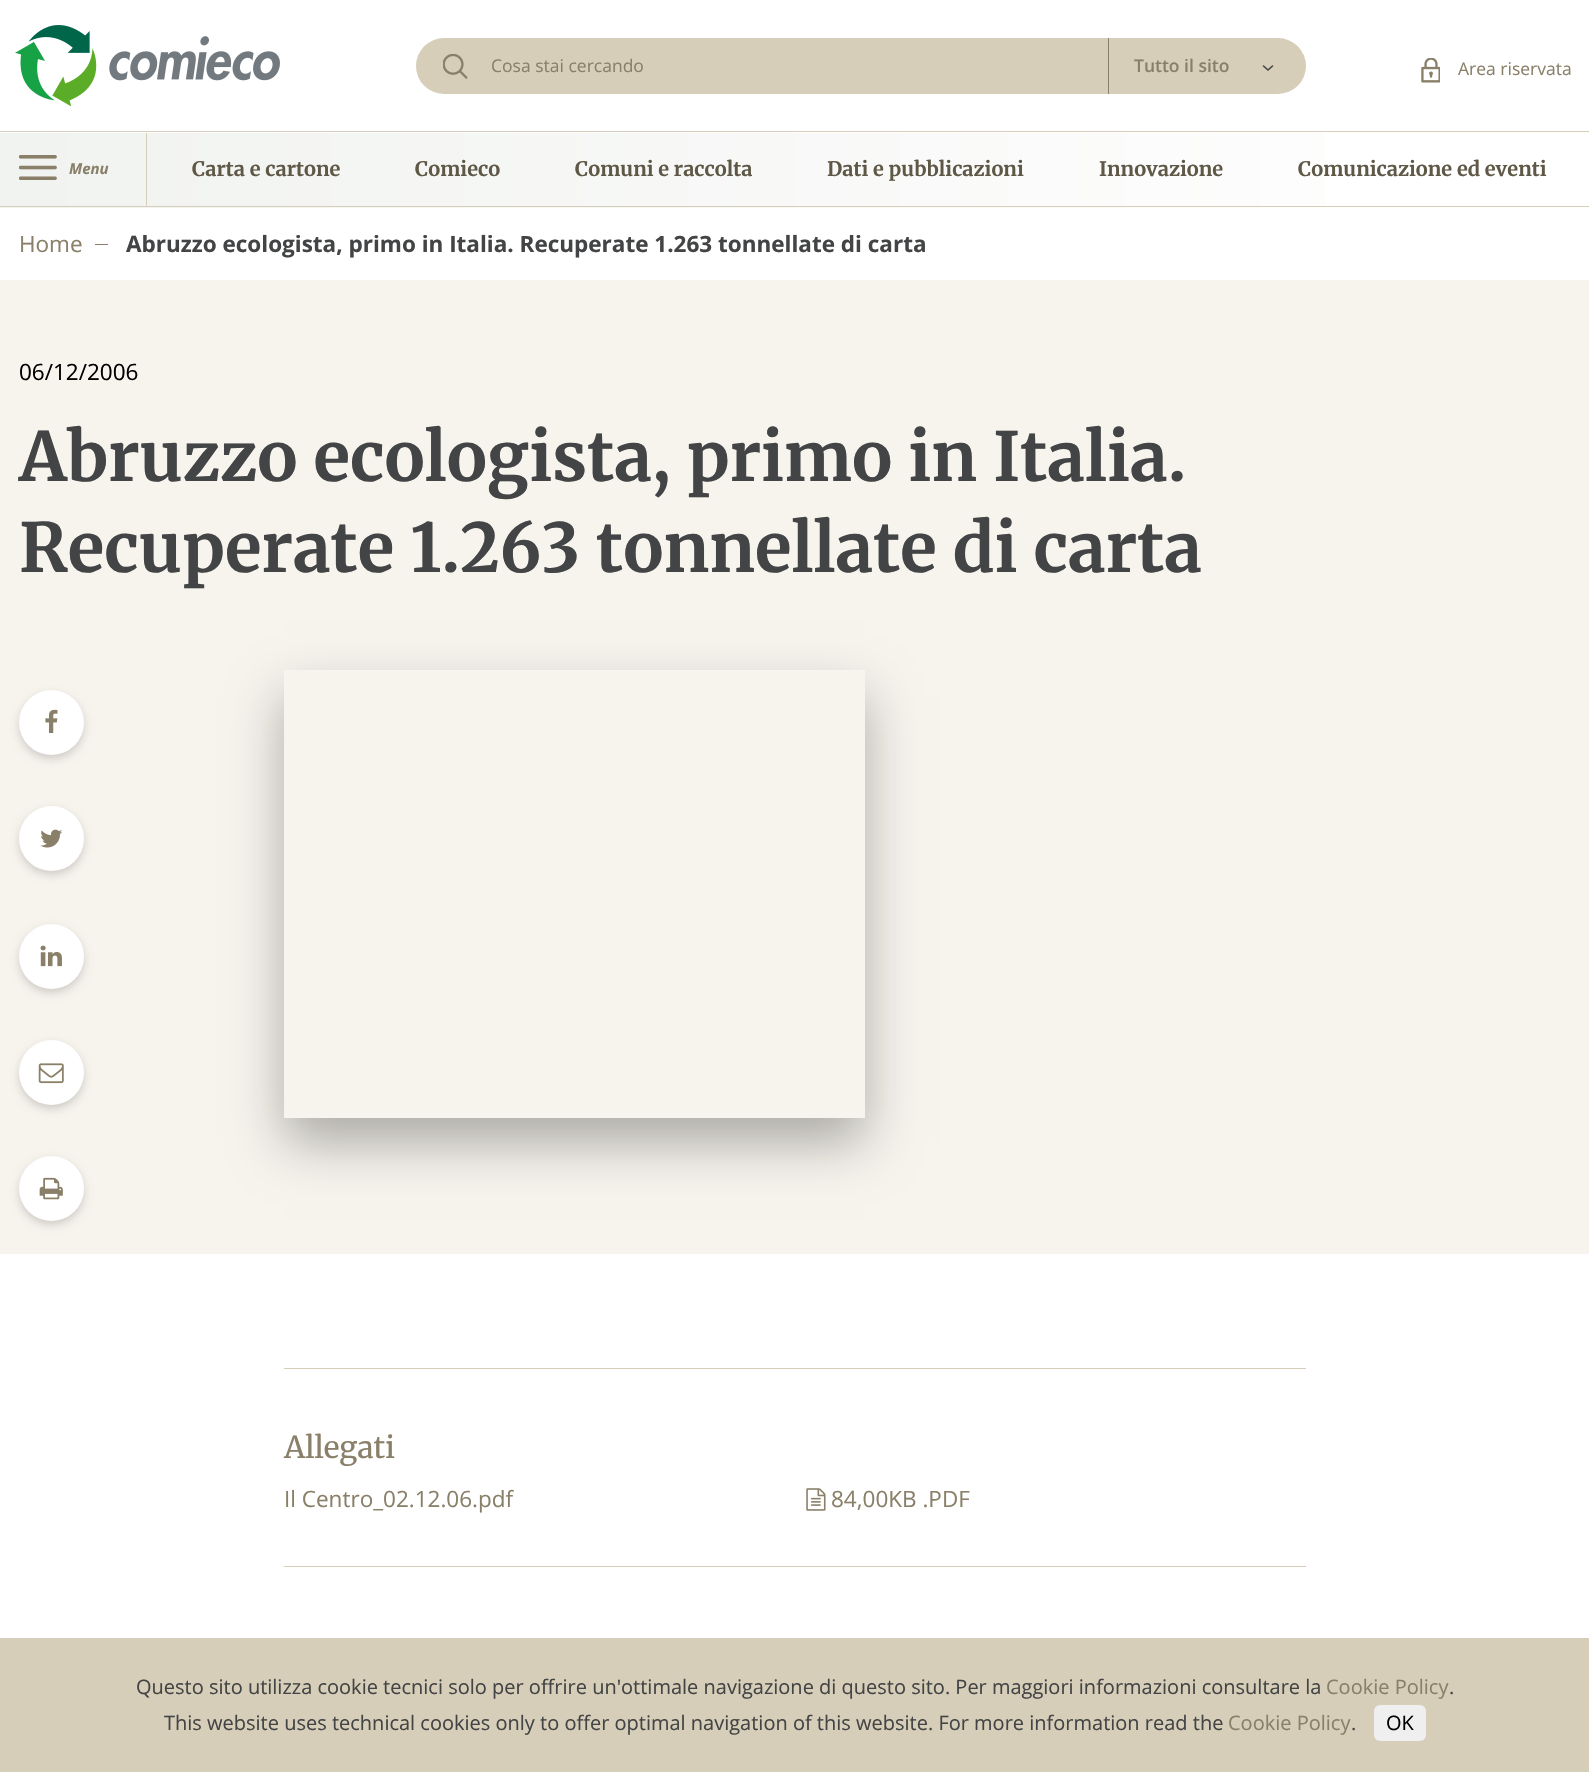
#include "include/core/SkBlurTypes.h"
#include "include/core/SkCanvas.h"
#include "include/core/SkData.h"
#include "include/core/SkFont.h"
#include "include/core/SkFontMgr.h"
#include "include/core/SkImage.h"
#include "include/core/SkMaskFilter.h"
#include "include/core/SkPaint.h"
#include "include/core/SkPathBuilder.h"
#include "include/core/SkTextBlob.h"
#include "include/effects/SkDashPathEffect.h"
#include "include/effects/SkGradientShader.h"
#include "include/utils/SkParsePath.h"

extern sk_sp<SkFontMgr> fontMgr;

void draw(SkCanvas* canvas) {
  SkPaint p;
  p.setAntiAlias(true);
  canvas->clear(SK_ColorWHITE);
  p.setColor(SkColorSetRGB(214, 206, 184));
  canvas->drawRect(SkRect::MakeLTRB(0, 131, 1589, 132), p);
  canvas->drawImageRect(SkImages::DeferredFromEncodedData(SkData::MakeFromFileName("images/1.png")), SkRect::MakeLTRB(15, 25, 280, 106), SkSamplingOptions());
  canvas->drawRoundRect(SkRect::MakeLTRB(416, 38, 1306, 94), 28, 28, p);
  canvas->drawImageRect(SkImages::DeferredFromEncodedData(SkData::MakeFromFileName("images/2.png")), SkRect::MakeLTRB(443, 54, 468, 79), SkSamplingOptions());
  p.setColor(SkColorSetRGB(138, 128, 105));
  canvas->drawRect(SkRect::MakeLTRB(1108, 38, 1109, 94), p);
  p.setStyle(SkPaint::kStroke_Style);
  p.setStrokeWidth(1.6f);
  p.setStrokeCap(SkPaint::kRound_Cap);
  p.setColor(SkColorSetRGB(67, 68, 69));
  canvas->drawPath(SkPathBuilder().moveTo(1263.5f, 66).lineTo(1268, 70).lineTo(1272.5f, 66).detach(), p);
  canvas->drawImageRect(SkImages::DeferredFromEncodedData(SkData::MakeFromFileName("images/3.png")), SkRect::MakeLTRB(1421, 58, 1440, 83), SkSamplingOptions());
  p.setStyle(SkPaint::kFill_Style);
  {
    const SkColor colors[] = {SkColorSetRGB(241, 243, 240), SK_ColorWHITE};
    const float stops[] = {0, 1};
    const SkPoint ends[] = {{0, 169}, {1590, 169}};
    p.setShader(SkGradientShader::MakeLinear(ends, colors, stops, 2, SkTileMode::kClamp));
    p.setAlpha(255);
  }
  canvas->drawRect(SkRect::MakeLTRB(0, 133, 1325, 208), p);
  p.setShader(nullptr);
  p.setColor(SkColorSetRGB(214, 206, 184));
  canvas->drawRect(SkRect::MakeLTRB(0, 206, 1589, 207), p);
  canvas->drawRect(SkRect::MakeLTRB(146, 133, 147, 206), p);
  canvas->drawImageRect(SkImages::DeferredFromEncodedData(SkData::MakeFromFileName("images/4.png")), SkRect::MakeLTRB(19, 155, 57, 180), SkSamplingOptions());
  p.setColor(SkColorSetRGB(138, 128, 105));
  canvas->drawRect(SkRect::MakeLTRB(95, 244, 108, 245), p);
  p.setColor(SkColorSetRGB(247, 244, 238));
  canvas->drawRect(SkRect::MakeLTRB(0, 280, 1589, 1254), p);
  p.setColor(SkColorSetARGB(41, 0, 0, 0));
  p.setMaskFilter(SkMaskFilter::MakeBlur(kNormal_SkBlurStyle, 4));
  canvas->drawRoundRect(SkRect::MakeLTRB(19, 694, 84, 759), 32.5f, 32.5f, p);
  p.setMaskFilter(nullptr);
  p.setColor(SK_ColorWHITE);
  canvas->drawCircle(51.5f, 722.5f, 32.5f, p);
  canvas->drawImageRect(SkImages::DeferredFromEncodedData(SkData::MakeFromFileName("images/5.png")), SkRect::MakeLTRB(45, 709, 58, 734), SkSamplingOptions());
  p.setColor(SkColorSetARGB(41, 0, 0, 0));
  p.setMaskFilter(SkMaskFilter::MakeBlur(kNormal_SkBlurStyle, 4));
  canvas->drawRoundRect(SkRect::MakeLTRB(19, 810, 84, 875), 32.5f, 32.5f, p);
  p.setMaskFilter(nullptr);
  p.setColor(SK_ColorWHITE);
  canvas->drawCircle(51.5f, 838.5f, 32.5f, p);
  canvas->drawImageRect(SkImages::DeferredFromEncodedData(SkData::MakeFromFileName("images/6.png")), SkRect::MakeLTRB(40, 829, 62, 848), SkSamplingOptions());
  p.setColor(SkColorSetARGB(41, 0, 0, 0));
  p.setMaskFilter(SkMaskFilter::MakeBlur(kNormal_SkBlurStyle, 4));
  canvas->drawRoundRect(SkRect::MakeLTRB(19, 928, 84, 993), 32.5f, 32.5f, p);
  p.setMaskFilter(nullptr);
  p.setColor(SK_ColorWHITE);
  canvas->drawCircle(51.5f, 956.5f, 32.5f, p);
  canvas->drawImageRect(SkImages::DeferredFromEncodedData(SkData::MakeFromFileName("images/7.png")), SkRect::MakeLTRB(40, 945, 62, 967), SkSamplingOptions());
  p.setColor(SkColorSetARGB(41, 0, 0, 0));
  p.setMaskFilter(SkMaskFilter::MakeBlur(kNormal_SkBlurStyle, 4));
  canvas->drawRoundRect(SkRect::MakeLTRB(19, 1044, 84, 1109), 32.5f, 32.5f, p);
  p.setMaskFilter(nullptr);
  p.setColor(SK_ColorWHITE);
  canvas->drawCircle(51.5f, 1072.5f, 32.5f, p);
  canvas->drawImageRect(SkImages::DeferredFromEncodedData(SkData::MakeFromFileName("images/8.png")), SkRect::MakeLTRB(38, 1063, 64, 1084), SkSamplingOptions());
  p.setColor(SkColorSetARGB(41, 0, 0, 0));
  p.setMaskFilter(SkMaskFilter::MakeBlur(kNormal_SkBlurStyle, 4));
  canvas->drawRoundRect(SkRect::MakeLTRB(19, 1160, 84, 1225), 32.5f, 32.5f, p);
  p.setMaskFilter(nullptr);
  p.setColor(SK_ColorWHITE);
  canvas->drawCircle(51.5f, 1188.5f, 32.5f, p);
  canvas->drawImageRect(SkImages::DeferredFromEncodedData(SkData::MakeFromFileName("images/9.png")), SkRect::MakeLTRB(39, 1177, 63, 1200), SkSamplingOptions());
  canvas->save();
  canvas->clipPath(SkPathBuilder(SkPathFillType::kEvenOdd).moveTo(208, 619).lineTo(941, 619).lineTo(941, 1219).lineTo(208, 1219).close().moveTo(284, 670).lineTo(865, 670).lineTo(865, 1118).lineTo(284, 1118).close().detach(), true);
  p.setColor(SkColorSetARGB(77, 0, 0, 0));
  p.setMaskFilter(SkMaskFilter::MakeBlur(kNormal_SkBlurStyle, 25));
  canvas->drawRect(SkRect::MakeLTRB(284, 695, 865, 1143), p);
  p.setMaskFilter(nullptr);
  canvas->restore();
  p.setColor(SkColorSetRGB(214, 206, 184));
  canvas->drawRect(SkRect::MakeLTRB(284, 1368, 1306, 1369), p);
  canvas->drawImageRect(SkImages::DeferredFromEncodedData(SkData::MakeFromFileName("images/10.png")), SkRect::MakeLTRB(806, 1488, 826, 1511), SkSamplingOptions());
  canvas->drawRect(SkRect::MakeLTRB(284, 1566, 1306, 1567), p);
  canvas->drawRect(SkRect::MakeLTRB(0, 1638, 1589, 1772), p);
  p.setColor(SkColorSetRGB(239, 239, 239));
  canvas->drawRoundRect(SkRect::MakeLTRB(1374, 1705, 1426, 1741), 6, 6, p);
  SkFont font1(fontMgr->matchFamilyStyle("Open Sans", SkFontStyle::Normal()), 17.5f);
  font1.setSubpixel(true);
  p.setColor(SkColorSetRGB(138, 128, 105));
  canvas->drawString("Cosa stai cercando", 491, 72, font1, p);
  SkFont font2(fontMgr->matchFamilyStyle("Open Sans", SkFontStyle(600, SkFontStyle::kNormal_Width, SkFontStyle::kUpright_Slant)), 17.5f);
  font2.setSubpixel(true);
  canvas->drawString("Tutto il sito", 1134, 72, font2, p);
  canvas->drawString("Area riservata", 1458, 75, font1, p);
  SkFont font3(fontMgr->matchFamilyStyle("Open Sans", SkFontStyle::BoldItalic()), 15);
  font3.setSubpixel(true);
  canvas->drawString("Menu", 69, 174, font3, p);
  SkFont font4(fontMgr->matchFamilyStyle("Merriweather", SkFontStyle::Bold()), 20);
  font4.setSubpixel(true);
  p.setColor(SkColorSetRGB(95, 88, 71));
  canvas->drawString("Carta e cartone", 192, 176, font4, p);
  canvas->drawString("Comieco", 415, 176, font4, p);
  canvas->drawString("Comuni e raccolta", 575, 176, font4, p);
  canvas->drawString("Dati e pubblicazioni", 827, 176, font4, p);
  canvas->drawString("Innovazione", 1099, 176, font4, p);
  canvas->drawString("Comunicazione ed eventi", 1298, 176, font4, p);
  SkFont font5(fontMgr->matchFamilyStyle("Open Sans", SkFontStyle::Normal()), 22.5f);
  font5.setSubpixel(true);
  p.setColor(SkColorSetRGB(138, 128, 105));
  canvas->drawString("Home", 19, 252, font5, p);
  SkFont font6(fontMgr->matchFamilyStyle("Open Sans", SkFontStyle::Bold()), 22.5f);
  font6.setSubpixel(true);
  p.setColor(SkColorSetRGB(67, 68, 69));
  canvas->drawString("Abruzzo ecologista, primo in Italia. Recuperate 1.263 tonnellate di carta", 126, 252, font6, p);
  p.setColor(SkColorSetRGB(1, 1, 1));
  canvas->drawString("06/12/2006", 19, 380, font5, p);
  SkFont font7(fontMgr->matchFamilyStyle("Merriweather", SkFontStyle::Bold()), 67.5f);
  font7.setSubpixel(true);
  p.setColor(SkColorSetRGB(67, 68, 69));
  canvas->drawString("Abruzzo ecologista, primo in Italia.", 19, 481, font7, p);
  canvas->drawString("Recuperate 1.263 tonnellate di carta", 19, 572, font7, p);
  SkFont font8(fontMgr->matchFamilyStyle("Merriweather", SkFontStyle::Normal()), 30);
  font8.setSubpixel(true);
  p.setColor(SkColorSetRGB(138, 128, 105));
  canvas->drawString("Allegati", 284, 1458, font8, p);
  canvas->drawString("Il Centro_02.12.06.pdf", 284, 1507, font5, p);
  canvas->drawString("84,00KB .PDF", 831, 1507, font5, p);
  SkFont font9(fontMgr->matchFamilyStyle("Open Sans", SkFontStyle::Normal()), 20);
  font9.setSubpixel(true);
  p.setColor(SkColorSetRGB(67, 68, 69));
  canvas->drawString("Questo sito utilizza cookie tecnici solo per offrire un'ottimale navigazione di questo sito. Per maggiori informazioni consultare la", 136, 1694, font9, p);
  p.setColor(SkColorSetRGB(138, 128, 105));
  canvas->drawString("Cookie Policy", 1326, 1694, font9, p);
  p.setColor(SkColorSetRGB(67, 68, 69));
  canvas->drawString(".", 1449, 1694, font9, p);
  canvas->drawString("This website uses technical cookies only to offer optimal navigation of this website. For more information read the", 164, 1730, font9, p);
  p.setColor(SkColorSetRGB(138, 128, 105));
  canvas->drawString("Cookie Policy", 1228, 1730, font9, p);
  p.setColor(SkColorSetRGB(67, 68, 69));
  canvas->drawString(".", 1351, 1730, font9, p);
  p.setColor(SkColorSetRGB(1, 1, 1));
  canvas->drawString("OK", 1386, 1730, font9, p);
}
